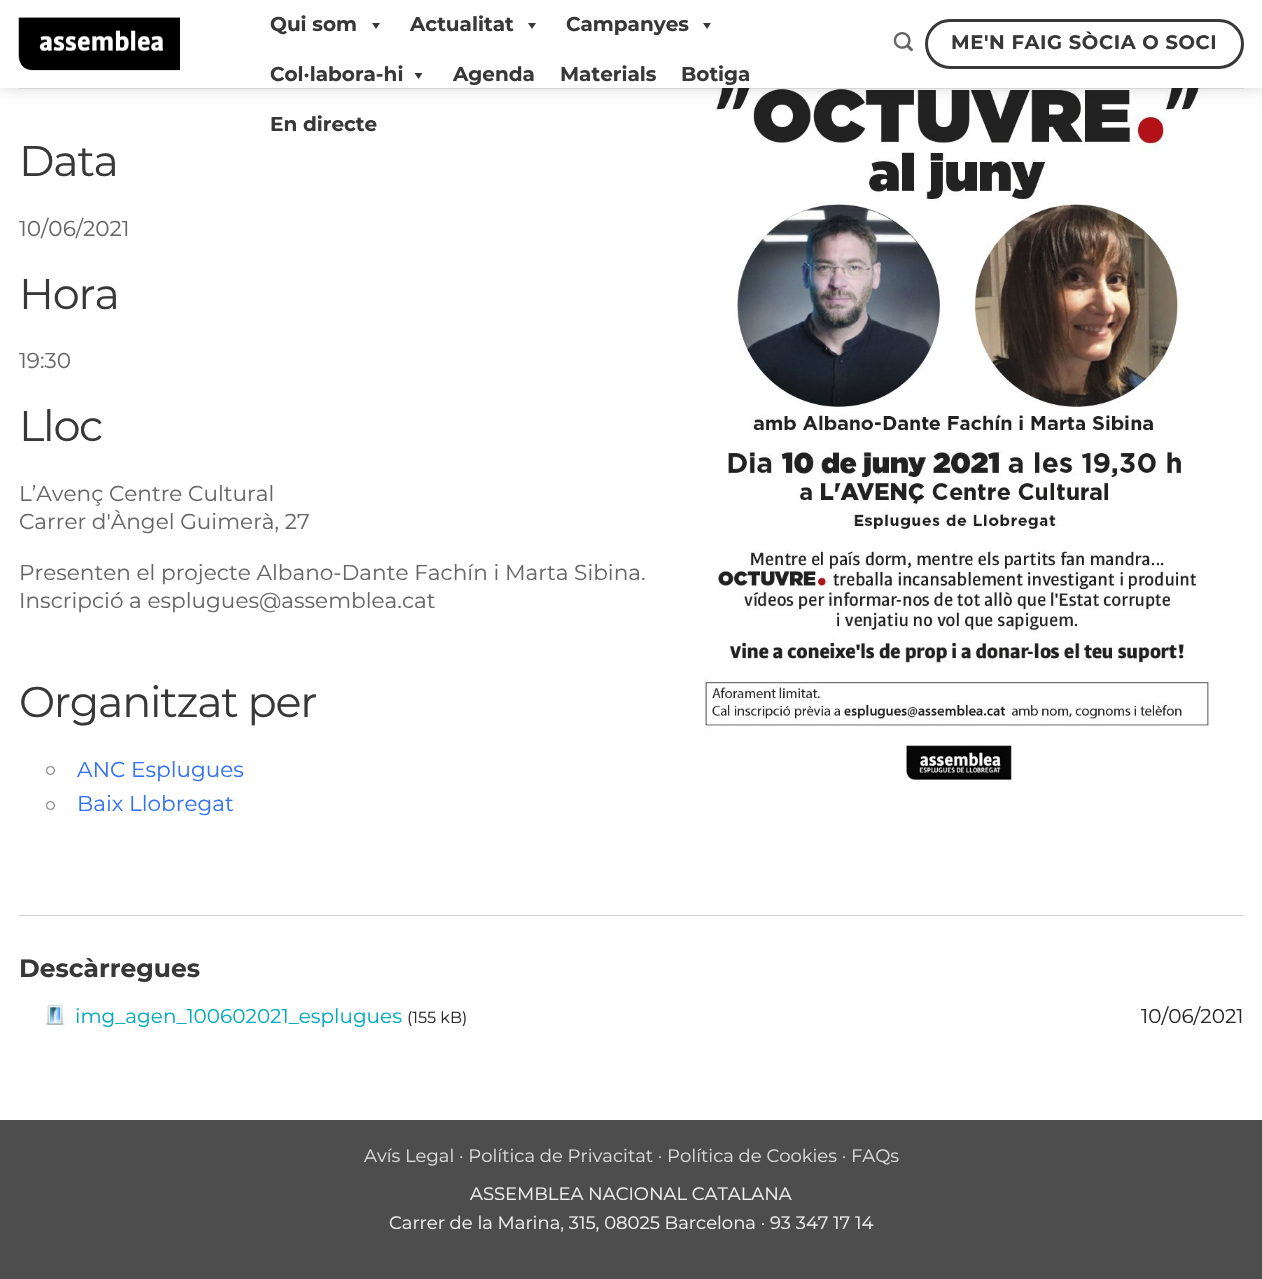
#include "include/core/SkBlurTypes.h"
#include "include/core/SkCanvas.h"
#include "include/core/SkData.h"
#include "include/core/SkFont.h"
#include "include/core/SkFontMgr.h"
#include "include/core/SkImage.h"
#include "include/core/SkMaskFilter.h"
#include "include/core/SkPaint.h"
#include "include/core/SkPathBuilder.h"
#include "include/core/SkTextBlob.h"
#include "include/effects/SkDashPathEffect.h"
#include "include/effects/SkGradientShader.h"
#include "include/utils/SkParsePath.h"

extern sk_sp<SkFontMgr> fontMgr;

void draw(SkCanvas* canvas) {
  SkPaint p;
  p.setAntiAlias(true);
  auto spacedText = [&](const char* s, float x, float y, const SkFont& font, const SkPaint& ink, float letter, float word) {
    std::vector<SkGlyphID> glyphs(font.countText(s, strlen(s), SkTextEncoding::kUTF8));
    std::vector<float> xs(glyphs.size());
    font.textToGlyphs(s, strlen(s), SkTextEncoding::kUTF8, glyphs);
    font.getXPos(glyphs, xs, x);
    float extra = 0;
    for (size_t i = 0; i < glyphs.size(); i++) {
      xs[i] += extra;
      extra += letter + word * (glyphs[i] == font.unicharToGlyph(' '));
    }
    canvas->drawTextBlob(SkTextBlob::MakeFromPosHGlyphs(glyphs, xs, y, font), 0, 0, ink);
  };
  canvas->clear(SK_ColorWHITE);
  canvas->drawImageRect(SkImages::DeferredFromEncodedData(SkData::MakeFromFileName("images/3.png")), SkRect::MakeLTRB(704, 88, 1210, 783), SkSamplingOptions());
  p.setColor(SkColorSetARGB(38, 0, 0, 0));
  p.setMaskFilter(SkMaskFilter::MakeBlur(kNormal_SkBlurStyle, 6));
  canvas->drawRect(SkRect::MakeLTRB(1, 1, 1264, 89), p);
  p.setMaskFilter(nullptr);
  p.setColor(SK_ColorWHITE);
  canvas->drawRect(SkRect::MakeLTRB(0, 0, 1262, 88), p);
  canvas->drawImageRect(SkImages::DeferredFromEncodedData(SkData::MakeFromFileName("images/1.png")), SkRect::MakeLTRB(18, 17, 180, 71), SkSamplingOptions());
  p.setColor(SkColorSetRGB(56, 56, 56));
  canvas->drawPath(SkPathBuilder().moveTo(380, 23).lineTo(376, 29).lineTo(372, 23).close().detach(), p);
  canvas->drawPath(SkPathBuilder().moveTo(536, 23).lineTo(532, 29).lineTo(528, 23).close().detach(), p);
  canvas->drawPath(SkPathBuilder().moveTo(711, 23).lineTo(707, 29).lineTo(703, 23).close().detach(), p);
  canvas->drawPath(SkPathBuilder().moveTo(422.5f, 73).lineTo(418.5f, 79).lineTo(414.5f, 73).close().detach(), p);
  canvas->drawImageRect(SkImages::DeferredFromEncodedData(SkData::MakeFromFileName("images/2.png")), SkRect::MakeLTRB(893, 32, 913, 52), SkSamplingOptions());
  p.setStyle(SkPaint::kStroke_Style);
  p.setStrokeWidth(3);
  canvas->drawRoundRect(SkRect::MakeLTRB(926.5f, 20.5f, 1242.5f, 67.5f), 23.5f, 23.5f, p);
  p.setStyle(SkPaint::kFill_Style);
  p.setColor(SkColorSetARGB(26, 40, 40, 40));
  canvas->drawRect(SkRect::MakeLTRB(19, 88, 1244, 89), p);
  p.setColor(SkColorSetRGB(209, 209, 209));
  canvas->drawRect(SkRect::MakeLTRB(19, 915, 1244, 916), p);
  p.setStyle(SkPaint::kStroke_Style);
  p.setStrokeWidth(1);
  p.setColor(SkColorSetRGB(102, 102, 102));
  canvas->drawCircle(50.5f, 770.5f, 4, p);
  canvas->drawCircle(50.5f, 805.5f, 4, p);
  canvas->drawImageRect(SkImages::DeferredFromEncodedData(SkData::MakeFromFileName("images/4.png")), SkRect::MakeLTRB(45, 1004, 65, 1025), SkSamplingOptions());
  p.setStyle(SkPaint::kFill_Style);
  p.setColor(SkColorSetRGB(77, 77, 77));
  canvas->drawRect(SkRect::MakeLTRB(0, 1120, 1262, 1279), p);
  SkFont font1(fontMgr->matchFamilyStyle("Montserrat", SkFontStyle::Bold()), 20);
  font1.setSubpixel(true);
  p.setColor(SkColorSetRGB(56, 56, 56));
  canvas->drawString("Qui som", 270, 31, font1, p);
  canvas->drawString("Actualitat", 410, 31, font1, p);
  canvas->drawString("Campanyes", 566, 31, font1, p);
  canvas->drawString("Col·labora-hi", 270, 81, font1, p);
  canvas->drawString("Agenda", 453, 81, font1, p);
  canvas->drawString("Materials", 560, 81, font1, p);
  canvas->drawString("Botiga", 681, 81, font1, p);
  canvas->drawString("En directe", 270, 131, font1, p);
  SkFont font2(fontMgr->matchFamilyStyle("Montserrat", SkFontStyle::Bold()), 19.5f);
  font2.setSubpixel(true);
  spacedText("ME'N FAIG SÒCIA O SOCI", 951, 49, font2, p, 0.6f, 0);
  SkFont font3(fontMgr->matchFamilyStyle("Montserrat", SkFontStyle::Normal()), 43);
  font3.setSubpixel(true);
  spacedText("Data", 19, 176, font3, p, -1.25f, 0);
  SkFont font4(fontMgr->matchFamilyStyle("Montserrat", SkFontStyle::Normal()), 21.6f);
  font4.setSubpixel(true);
  p.setColor(SkColorSetRGB(102, 102, 102));
  canvas->drawString("10/06/2021", 19, 236, font4, p);
  p.setColor(SkColorSetRGB(56, 56, 56));
  spacedText("Hora", 19, 309, font3, p, -1.25f, 0);
  p.setColor(SkColorSetRGB(102, 102, 102));
  canvas->drawString("19:30", 19, 368, font4, p);
  p.setColor(SkColorSetRGB(56, 56, 56));
  spacedText("Lloc", 19, 441, font3, p, -1.25f, 0);
  p.setColor(SkColorSetRGB(102, 102, 102));
  canvas->drawString("L’Avenç Centre Cultural", 19, 501, font4, p);
  canvas->drawString("Carrer d'Àngel Guimerà, 27", 19, 529, font4, p);
  canvas->drawString("Presenten el projecte Albano-Dante Fachín i Marta Sibina.", 19, 580, font4, p);
  canvas->drawString("Inscripció a esplugues@assemblea.cat", 19, 608, font4, p);
  p.setColor(SkColorSetRGB(56, 56, 56));
  spacedText("Organitzat per", 19, 717, font3, p, -1.25f, 0);
  p.setColor(SkColorSetRGB(51, 114, 240));
  canvas->drawString("ANC Esplugues", 77, 777, font4, p);
  canvas->drawString("Baix Llobregat", 77, 811, font4, p);
  SkFont font5(fontMgr->matchFamilyStyle("Montserrat", SkFontStyle::Bold()), 25);
  font5.setSubpixel(true);
  p.setColor(SkColorSetRGB(56, 56, 56));
  canvas->drawString("Descàrregues", 19, 977, font5, p);
  SkFont font6(fontMgr->matchFamilyStyle("Montserrat", SkFontStyle::Normal()), 20);
  font6.setSubpixel(true);
  p.setColor(SkColorSetRGB(0, 171, 190));
  canvas->drawString("img_agen_100602021_esplugues", 75, 1023, font6, p);
  SkFont font7(fontMgr->matchFamilyStyle("Montserrat", SkFontStyle::Normal()), 16);
  font7.setSubpixel(true);
  p.setColor(SkColorSetRGB(40, 40, 40));
  canvas->drawString("(155 kB)", 407, 1023, font7, p);
  canvas->drawString("10/06/2021", 1141, 1023, font6, p);
  SkFont font8(fontMgr->matchFamilyStyle("Montserrat", SkFontStyle::Normal()), 18);
  font8.setSubpixel(true);
  p.setColor(SkColorSetRGB(219, 219, 219));
  canvas->drawString("Avís Legal · Política de Privacitat · Política de Cookies · FAQs", 364, 1162, font8, p);
  p.setColor(SkColorSetRGB(241, 241, 241));
  canvas->drawString("ASSEMBLEA NACIONAL CATALANA", 470, 1200, font8, p);
  canvas->drawString("Carrer de la Marina, 315, 08025 Barcelona · 93 347 17 14", 389, 1229, font8, p);
}
